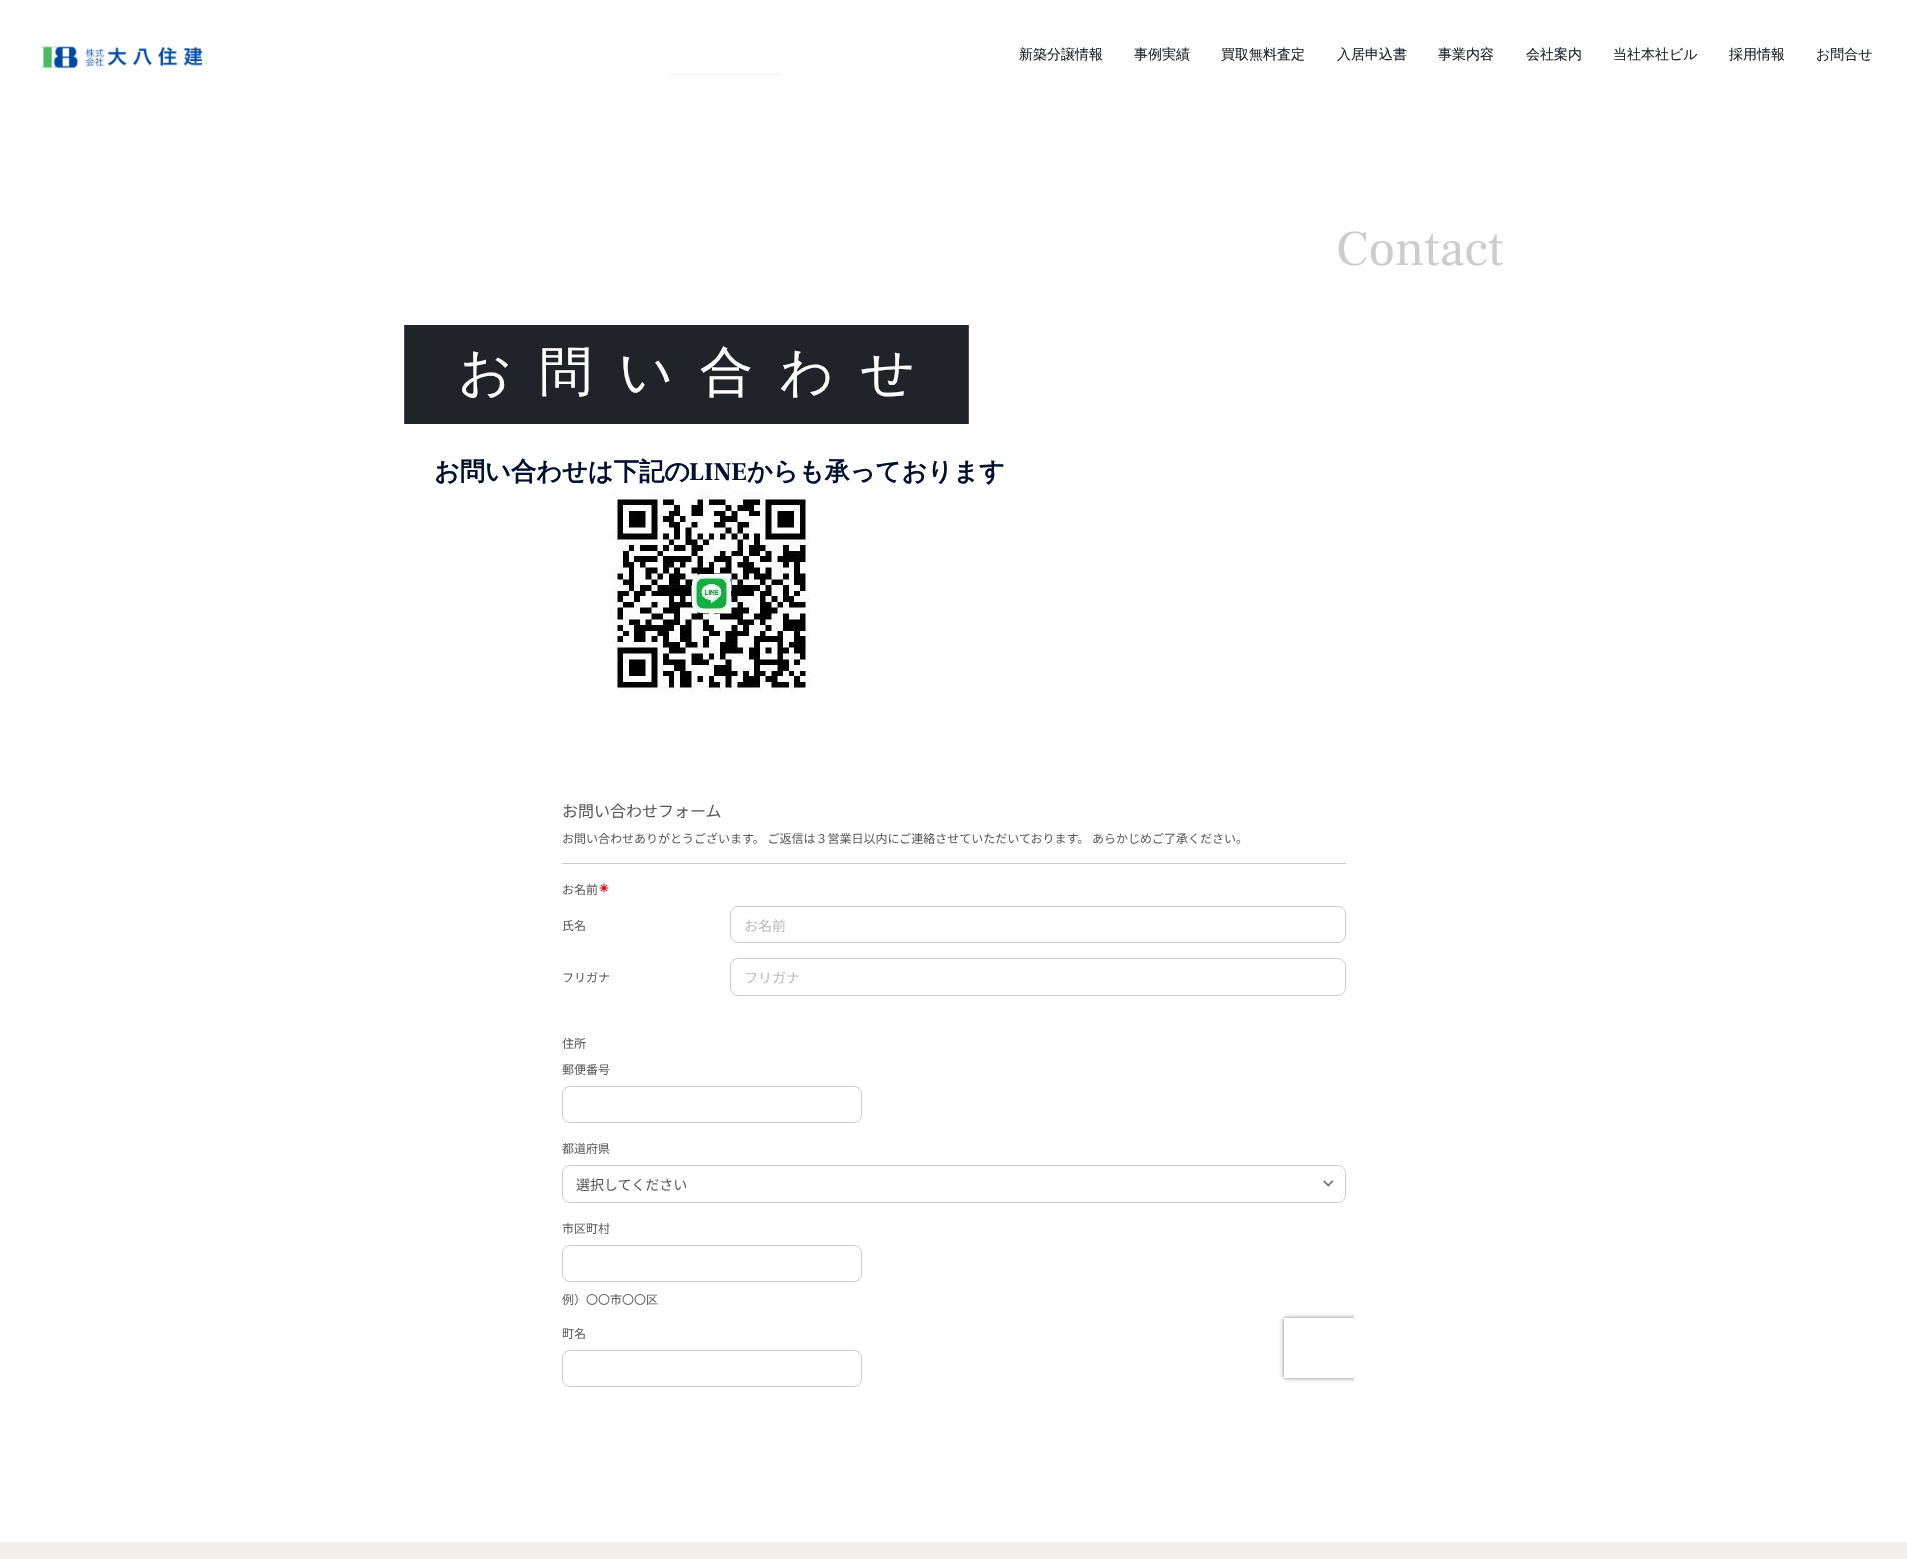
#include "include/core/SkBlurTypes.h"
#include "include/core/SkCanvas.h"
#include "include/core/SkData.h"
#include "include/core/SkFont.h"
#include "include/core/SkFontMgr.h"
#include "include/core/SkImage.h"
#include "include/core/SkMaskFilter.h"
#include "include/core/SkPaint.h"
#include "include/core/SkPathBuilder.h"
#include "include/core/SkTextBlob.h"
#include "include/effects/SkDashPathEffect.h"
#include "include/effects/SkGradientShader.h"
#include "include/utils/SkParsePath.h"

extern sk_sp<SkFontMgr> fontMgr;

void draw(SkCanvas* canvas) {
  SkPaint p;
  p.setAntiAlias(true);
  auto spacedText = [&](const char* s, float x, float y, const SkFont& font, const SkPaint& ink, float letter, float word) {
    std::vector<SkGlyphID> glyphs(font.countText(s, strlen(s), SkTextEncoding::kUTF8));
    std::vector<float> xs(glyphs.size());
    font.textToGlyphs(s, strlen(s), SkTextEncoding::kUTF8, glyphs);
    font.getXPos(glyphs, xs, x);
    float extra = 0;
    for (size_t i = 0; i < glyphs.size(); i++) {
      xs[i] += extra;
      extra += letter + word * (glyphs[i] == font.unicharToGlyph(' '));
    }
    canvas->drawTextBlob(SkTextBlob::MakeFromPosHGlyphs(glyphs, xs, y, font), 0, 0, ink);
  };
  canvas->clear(SK_ColorWHITE);
  canvas->drawImageRect(SkImages::DeferredFromEncodedData(SkData::MakeFromFileName("images/1.png")), SkRect::MakeLTRB(40, 46, 203, 69), SkSamplingOptions());
  p.setColor(SkColorSetRGB(244, 244, 239));
  canvas->drawRect(SkRect::MakeLTRB(669, 74, 781, 75), p);
  p.setColor(SkColorSetRGB(32, 35, 42));
  canvas->drawRect(SkRect::MakeLTRB(405, 325, 968, 424), p);
  p.setColor(SkColorSetRGB(74, 77, 81));
  canvas->drawRect(SkRect::MakeLTRB(968, 325, 969, 424), p);
  canvas->drawRect(SkRect::MakeLTRB(404, 325, 405, 424), p);
  canvas->drawImageRect(SkImages::DeferredFromEncodedData(SkData::MakeFromFileName("images/2.png")), SkRect::MakeLTRB(610, 492, 810, 692), SkSamplingOptions());
  canvas->drawImageRect(SkImages::DeferredFromEncodedData(SkData::MakeFromFileName("images/3.png")), SkRect::MakeLTRB(562, 803, 1354, 1387), SkSamplingOptions());
  p.setColor(SkColorSetRGB(242, 239, 239));
  canvas->drawRect(SkRect::MakeLTRB(0, 1542, 1907, 1559), p);
  SkFont font1(fontMgr->matchFamilyStyle("WenQuanYi Zen Hei", SkFontStyle(500, SkFontStyle::kNormal_Width, SkFontStyle::kUpright_Slant)), 14);
  font1.setSubpixel(true);
  p.setColor(SkColorSetRGB(32, 35, 42));
  canvas->drawString("新築分譲情報", 1019, 59, font1, p);
  canvas->drawString("事例実績", 1134, 59, font1, p);
  canvas->drawString("買取無料査定", 1221, 59, font1, p);
  canvas->drawString("入居申込書", 1337, 59, font1, p);
  canvas->drawString("事業内容", 1438, 59, font1, p);
  canvas->drawString("会社案内", 1526, 59, font1, p);
  canvas->drawString("当社本社ビル", 1613, 59, font1, p);
  canvas->drawString("採用情報", 1729, 59, font1, p);
  canvas->drawString("お問合せ", 1816, 59, font1, p);
  SkFont font2(fontMgr->matchFamilyStyle("Frank Ruhl Libre", SkFontStyle::Normal()), 50);
  font2.setSubpixel(true);
  p.setColor(SkColorSetRGB(204, 204, 204));
  canvas->drawString("Contact", 1336, 265, font2, p);
  SkFont font3(fontMgr->matchFamilyStyle("WenQuanYi Zen Hei", SkFontStyle(500, SkFontStyle::kNormal_Width, SkFontStyle::kUpright_Slant)), 53.25f);
  font3.setSubpixel(true);
  p.setColor(SK_ColorWHITE);
  spacedText("お問い合わせ", 458, 390, font3, p, 26.5f, 0);
  SkFont font4(fontMgr->matchFamilyStyle("WenQuanYi Zen Hei", SkFontStyle::Bold()), 25.25f);
  font4.setSubpixel(true);
  p.setColor(SkColorSetRGB(3, 17, 48));
  canvas->drawString("お問い合わせは下記の", 434, 480, font4, p);
  SkFont font5(fontMgr->matchFamilyStyle("Frank Ruhl Libre", SkFontStyle::Bold()), 25.25f);
  font5.setSubpixel(true);
  canvas->drawString("LINE", 689, 480, font5, p);
  canvas->drawString("からも承っております", 747, 480, font4, p);
}
